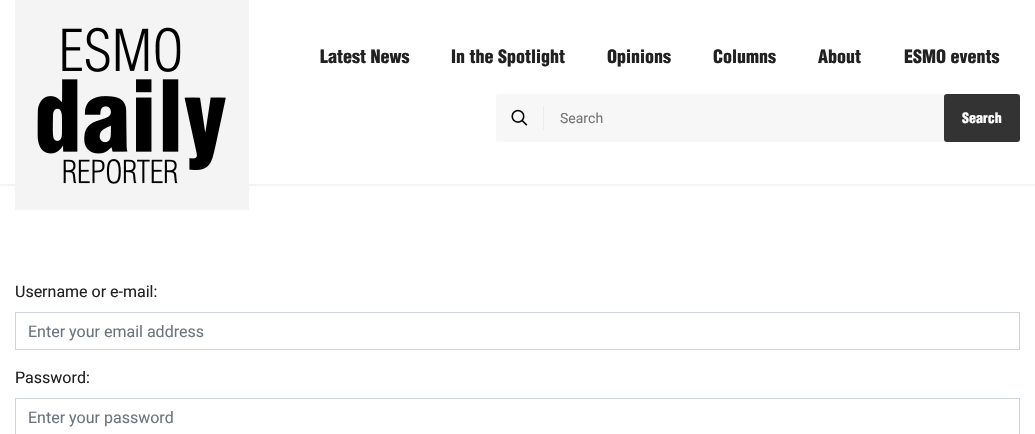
#include "include/core/SkBlurTypes.h"
#include "include/core/SkCanvas.h"
#include "include/core/SkData.h"
#include "include/core/SkFont.h"
#include "include/core/SkFontMgr.h"
#include "include/core/SkImage.h"
#include "include/core/SkMaskFilter.h"
#include "include/core/SkPaint.h"
#include "include/core/SkPathBuilder.h"
#include "include/core/SkTextBlob.h"
#include "include/effects/SkDashPathEffect.h"
#include "include/effects/SkGradientShader.h"
#include "include/utils/SkParsePath.h"

extern sk_sp<SkFontMgr> fontMgr;

void draw(SkCanvas* canvas) {
  SkPaint p;
  p.setAntiAlias(true);
  canvas->clear(SK_ColorWHITE);
  p.setColor(SkColorSetRGB(244, 244, 244));
  canvas->drawRect(SkRect::MakeLTRB(0, 184, 1035, 186), p);
  canvas->drawRect(SkRect::MakeLTRB(15, 0, 249, 210), p);
  canvas->drawImageRect(SkImages::DeferredFromEncodedData(SkData::MakeFromFileName("images/1.png")), SkRect::MakeLTRB(37, 27, 226, 184), SkSamplingOptions());
  p.setColor(SkColorSetRGB(247, 247, 247));
  canvas->drawRoundRect(SkRect::MakeLTRB(496, 94, 1020, 142), 3, 3, p);
  canvas->drawImageRect(SkImages::DeferredFromEncodedData(SkData::MakeFromFileName("images/2.png")), SkRect::MakeLTRB(511, 109, 528, 126), SkSamplingOptions());
  p.setColor(SkColorSetRGB(235, 235, 235));
  canvas->drawRect(SkRect::MakeLTRB(543, 106, 544, 130), p);
  p.setColor(SkColorSetRGB(51, 51, 51));
  canvas->drawRoundRect(SkRect::MakeLTRB(945, 95, 1019, 141), 2, 2, p);
  p.setStyle(SkPaint::kStroke_Style);
  p.setStrokeWidth(2);
  canvas->drawRoundRect(SkRect::MakeLTRB(945, 95, 1019, 141), 2, 2, p);
  p.setStrokeWidth(1);
  p.setColor(SkColorSetRGB(206, 212, 218));
  canvas->drawRect(SkRect::MakeLTRB(15.5f, 312.5f, 1019.5f, 349.5f), p);
  canvas->drawRect(SkRect::MakeLTRB(15.5f, 398.5f, 1019.5f, 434.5f), p);
  SkFont font1(fontMgr->matchFamilyStyle("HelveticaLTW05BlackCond", SkFontStyle(900, SkFontStyle::kNormal_Width, SkFontStyle::kUpright_Slant)), 18);
  font1.setSubpixel(true);
  p.setStyle(SkPaint::kFill_Style);
  p.setColor(SkColorSetRGB(33, 33, 33));
  canvas->drawString("Latest News", 320, 63, font1, p);
  canvas->drawString("In the Spotlight", 451, 63, font1, p);
  canvas->drawString("Opinions", 607, 63, font1, p);
  canvas->drawString("Columns", 713, 63, font1, p);
  canvas->drawString("About", 818, 63, font1, p);
  canvas->drawString("ESMO events", 904, 63, font1, p);
  SkFont font2(fontMgr->matchFamilyStyle("Roboto", SkFontStyle::Normal()), 14);
  font2.setSubpixel(true);
  p.setColor(SkColorSetRGB(117, 117, 117));
  canvas->drawString("Search", 560, 123, font2, p);
  SkFont font3(fontMgr->matchFamilyStyle("HelveticaLTW05BlackCond", SkFontStyle(900, SkFontStyle::kNormal_Width, SkFontStyle::kUpright_Slant)), 14);
  font3.setSubpixel(true);
  p.setColor(SK_ColorWHITE);
  canvas->drawString("Search", 962, 123, font3, p);
  SkFont font4(fontMgr->matchFamilyStyle("Roboto", SkFontStyle::Normal()), 16);
  font4.setSubpixel(true);
  p.setColor(SkColorSetRGB(33, 33, 33));
  canvas->drawString("Username or e-mail:", 15, 297, font4, p);
  p.setColor(SkColorSetRGB(108, 117, 125));
  canvas->drawString("Enter your email address", 28, 337, font4, p);
  p.setColor(SkColorSetRGB(33, 33, 33));
  canvas->drawString("Password:", 15, 383, font4, p);
  p.setColor(SkColorSetRGB(108, 117, 125));
  canvas->drawString("Enter your password", 28, 423, font4, p);
}
